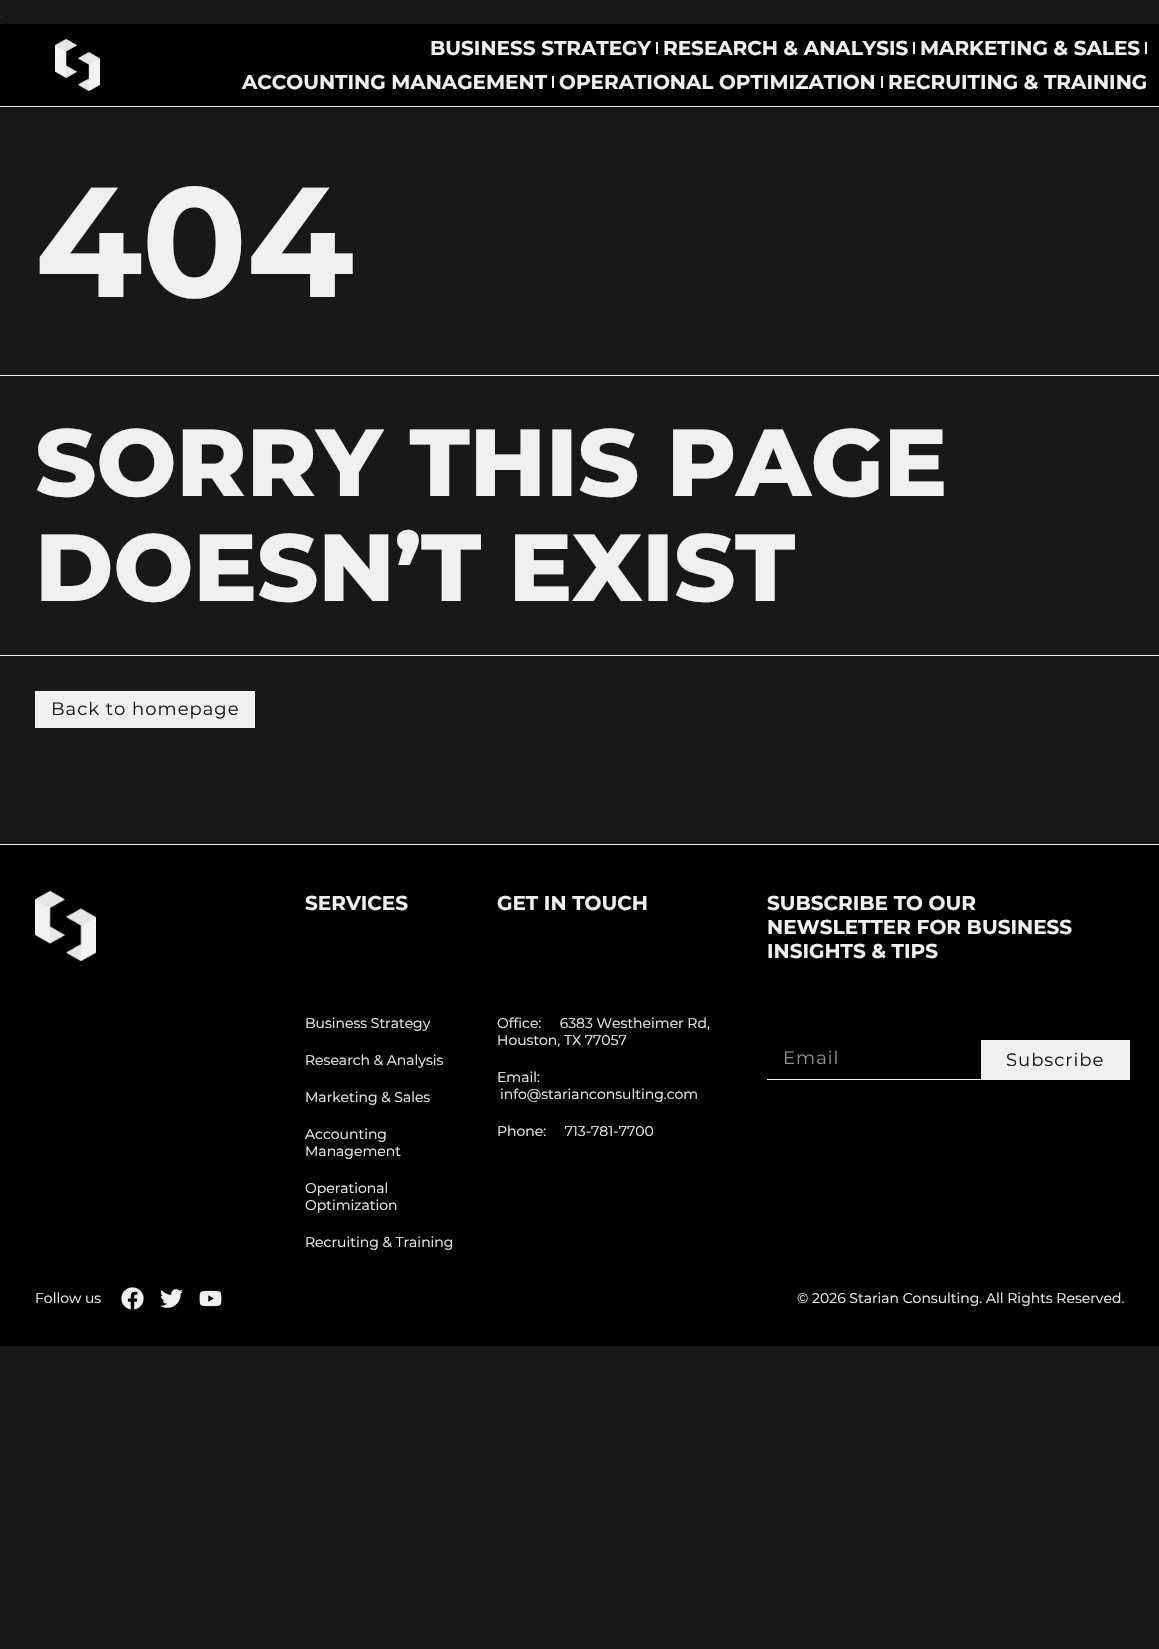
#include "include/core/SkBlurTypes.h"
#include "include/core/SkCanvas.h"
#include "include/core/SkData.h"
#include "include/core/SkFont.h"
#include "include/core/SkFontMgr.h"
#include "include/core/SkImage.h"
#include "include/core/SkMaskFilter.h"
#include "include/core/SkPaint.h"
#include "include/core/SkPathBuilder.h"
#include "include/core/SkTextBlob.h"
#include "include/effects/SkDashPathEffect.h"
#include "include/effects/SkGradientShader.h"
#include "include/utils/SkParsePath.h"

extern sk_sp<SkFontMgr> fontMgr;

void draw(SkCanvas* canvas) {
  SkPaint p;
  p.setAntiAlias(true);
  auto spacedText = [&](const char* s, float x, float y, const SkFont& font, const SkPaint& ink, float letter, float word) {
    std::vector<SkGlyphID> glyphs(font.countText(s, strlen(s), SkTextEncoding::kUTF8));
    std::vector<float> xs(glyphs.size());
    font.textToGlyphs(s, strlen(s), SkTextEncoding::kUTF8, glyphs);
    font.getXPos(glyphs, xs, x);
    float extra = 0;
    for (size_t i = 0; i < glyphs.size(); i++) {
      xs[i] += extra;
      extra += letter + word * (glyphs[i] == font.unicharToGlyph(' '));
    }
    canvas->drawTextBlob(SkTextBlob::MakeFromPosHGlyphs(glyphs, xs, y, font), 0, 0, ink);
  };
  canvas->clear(SkColorSetRGB(24, 24, 24));
  p.setColor(SK_ColorBLACK);
  canvas->drawRect(SkRect::MakeLTRB(0, 24, 1159, 106), p);
  p.setColor(SkColorSetRGB(240, 240, 240));
  canvas->drawRect(SkRect::MakeLTRB(0, 106, 1159, 107), p);
  canvas->drawImageRect(SkImages::DeferredFromEncodedData(SkData::MakeFromFileName("images/1.png")), SkRect::MakeLTRB(55, 39, 100, 91), SkSamplingOptions());
  canvas->drawRect(SkRect::MakeLTRB(656, 42, 658, 54), p);
  canvas->drawRect(SkRect::MakeLTRB(913, 42, 915, 54), p);
  canvas->drawRect(SkRect::MakeLTRB(1145, 42, 1147, 54), p);
  canvas->drawRect(SkRect::MakeLTRB(552, 76, 554, 88), p);
  canvas->drawRect(SkRect::MakeLTRB(881, 76, 883, 88), p);
  canvas->drawRect(SkRect::MakeLTRB(0, 375, 1159, 376), p);
  canvas->drawRect(SkRect::MakeLTRB(0, 655, 1159, 656), p);
  canvas->drawRect(SkRect::MakeLTRB(35, 691, 255, 728), p);
  p.setColor(SK_ColorBLACK);
  canvas->drawRect(SkRect::MakeLTRB(0, 845, 1159, 1346), p);
  p.setColor(SkColorSetRGB(240, 240, 240));
  canvas->drawRect(SkRect::MakeLTRB(0, 844, 1159, 845), p);
  canvas->drawImageRect(SkImages::DeferredFromEncodedData(SkData::MakeFromFileName("images/2.png")), SkRect::MakeLTRB(35, 891, 96, 961), SkSamplingOptions());
  canvas->drawRect(SkRect::MakeLTRB(767, 1079, 981, 1080), p);
  canvas->drawRect(SkRect::MakeLTRB(981, 1040, 1130, 1080), p);
  canvas->drawImageRect(SkImages::DeferredFromEncodedData(SkData::MakeFromFileName("images/3.png")), SkRect::MakeLTRB(121, 1287, 144, 1310), SkSamplingOptions());
  canvas->drawImageRect(SkImages::DeferredFromEncodedData(SkData::MakeFromFileName("images/4.png")), SkRect::MakeLTRB(160, 1289, 183, 1308), SkSamplingOptions());
  canvas->drawImageRect(SkImages::DeferredFromEncodedData(SkData::MakeFromFileName("images/5.png")), SkRect::MakeLTRB(199, 1290, 222, 1307), SkSamplingOptions());
  SkFont font1(fontMgr->matchFamilyStyle("Roboto", SkFontStyle::Normal()), 16);
  font1.setSubpixel(true);
  p.setColor(SkColorSetRGB(51, 51, 51));
  canvas->drawString(".", 0, 17, font1, p);
  SkFont font2(fontMgr->matchFamilyStyle("Montserrat", SkFontStyle::Bold()), 20);
  font2.setSubpixel(true);
  p.setColor(SkColorSetRGB(240, 240, 240));
  canvas->drawString("BUSINESS STRATEGY", 430, 55, font2, p);
  canvas->drawString("RESEARCH & ANALYSIS", 663, 55, font2, p);
  canvas->drawString("MARKETING & SALES", 920, 55, font2, p);
  canvas->drawString("ACCOUNTING MANAGEMENT", 242, 89, font2, p);
  canvas->drawString("OPERATIONAL OPTIMIZATION", 559, 89, font2, p);
  canvas->drawString("RECRUITING & TRAINING", 888, 89, font2, p);
  SkFont font3(fontMgr->matchFamilyStyle("Montserrat", SkFontStyle::Bold()), 156);
  font3.setSubpixel(true);
  spacedText("404", 35, 297, font3, p, -1, 0);
  SkFont font4(fontMgr->matchFamilyStyle("Montserrat", SkFontStyle(800, SkFontStyle::kNormal_Width, SkFontStyle::kUpright_Slant)), 95);
  font4.setSubpixel(true);
  spacedText("SORRY THIS PAGE", 35, 496, font4, p, -0.25f, 0);
  spacedText("DOESN’T EXIST", 35, 601, font4, p, -0.25f, 0);
  SkFont font5(fontMgr->matchFamilyStyle("Montserrat", SkFontStyle::Normal()), 18);
  font5.setSubpixel(true);
  p.setColor(SkColorSetRGB(24, 24, 24));
  spacedText("Back to homepage", 51, 715, font5, p, 1, 0);
  p.setColor(SkColorSetRGB(240, 240, 240));
  canvas->drawString("SERVICES", 305, 910, font2, p);
  SkFont font6(fontMgr->matchFamilyStyle("Montserrat", SkFontStyle::Normal()), 14);
  font6.setSubpixel(true);
  canvas->drawString("Business Strategy", 305, 1028, font6, p);
  canvas->drawString("Research & Analysis", 305, 1065, font6, p);
  canvas->drawString("Marketing & Sales", 305, 1102, font6, p);
  canvas->drawString("Accounting", 305, 1139, font6, p);
  canvas->drawString("Management", 305, 1156, font6, p);
  canvas->drawString("Operational", 305, 1193, font6, p);
  canvas->drawString("Optimization", 305, 1210, font6, p);
  canvas->drawString("Recruiting & Training", 305, 1247, font6, p);
  canvas->drawString("GET IN TOUCH", 497, 910, font2, p);
  canvas->drawString("Office:     6383 Westheimer Rd,", 497, 1028, font6, p);
  canvas->drawString("Houston, TX 77057", 497, 1045, font6, p);
  canvas->drawString("Email:", 497, 1082, font6, p);
  canvas->drawString("info@starianconsulting.com", 500, 1099, font6, p);
  canvas->drawString("Phone:     713-781-7700", 497, 1136, font6, p);
  canvas->drawString("SUBSCRIBE TO OUR", 767, 910, font2, p);
  canvas->drawString("NEWSLETTER FOR BUSINESS", 767, 934, font2, p);
  canvas->drawString("INSIGHTS & TIPS", 767, 958, font2, p);
  p.setColor(SkColorSetRGB(144, 144, 144));
  spacedText("Email", 783, 1064, font5, p, 1, 0);
  p.setColor(SkColorSetRGB(24, 24, 24));
  spacedText("Subscribe", 1006, 1066, font5, p, 1, 0);
  p.setColor(SkColorSetRGB(240, 240, 240));
  canvas->drawString("Follow us", 35, 1303, font6, p);
  canvas->drawString("© 2026 Starian Consulting. All Rights Reserved.", 797, 1303, font6, p);
}
